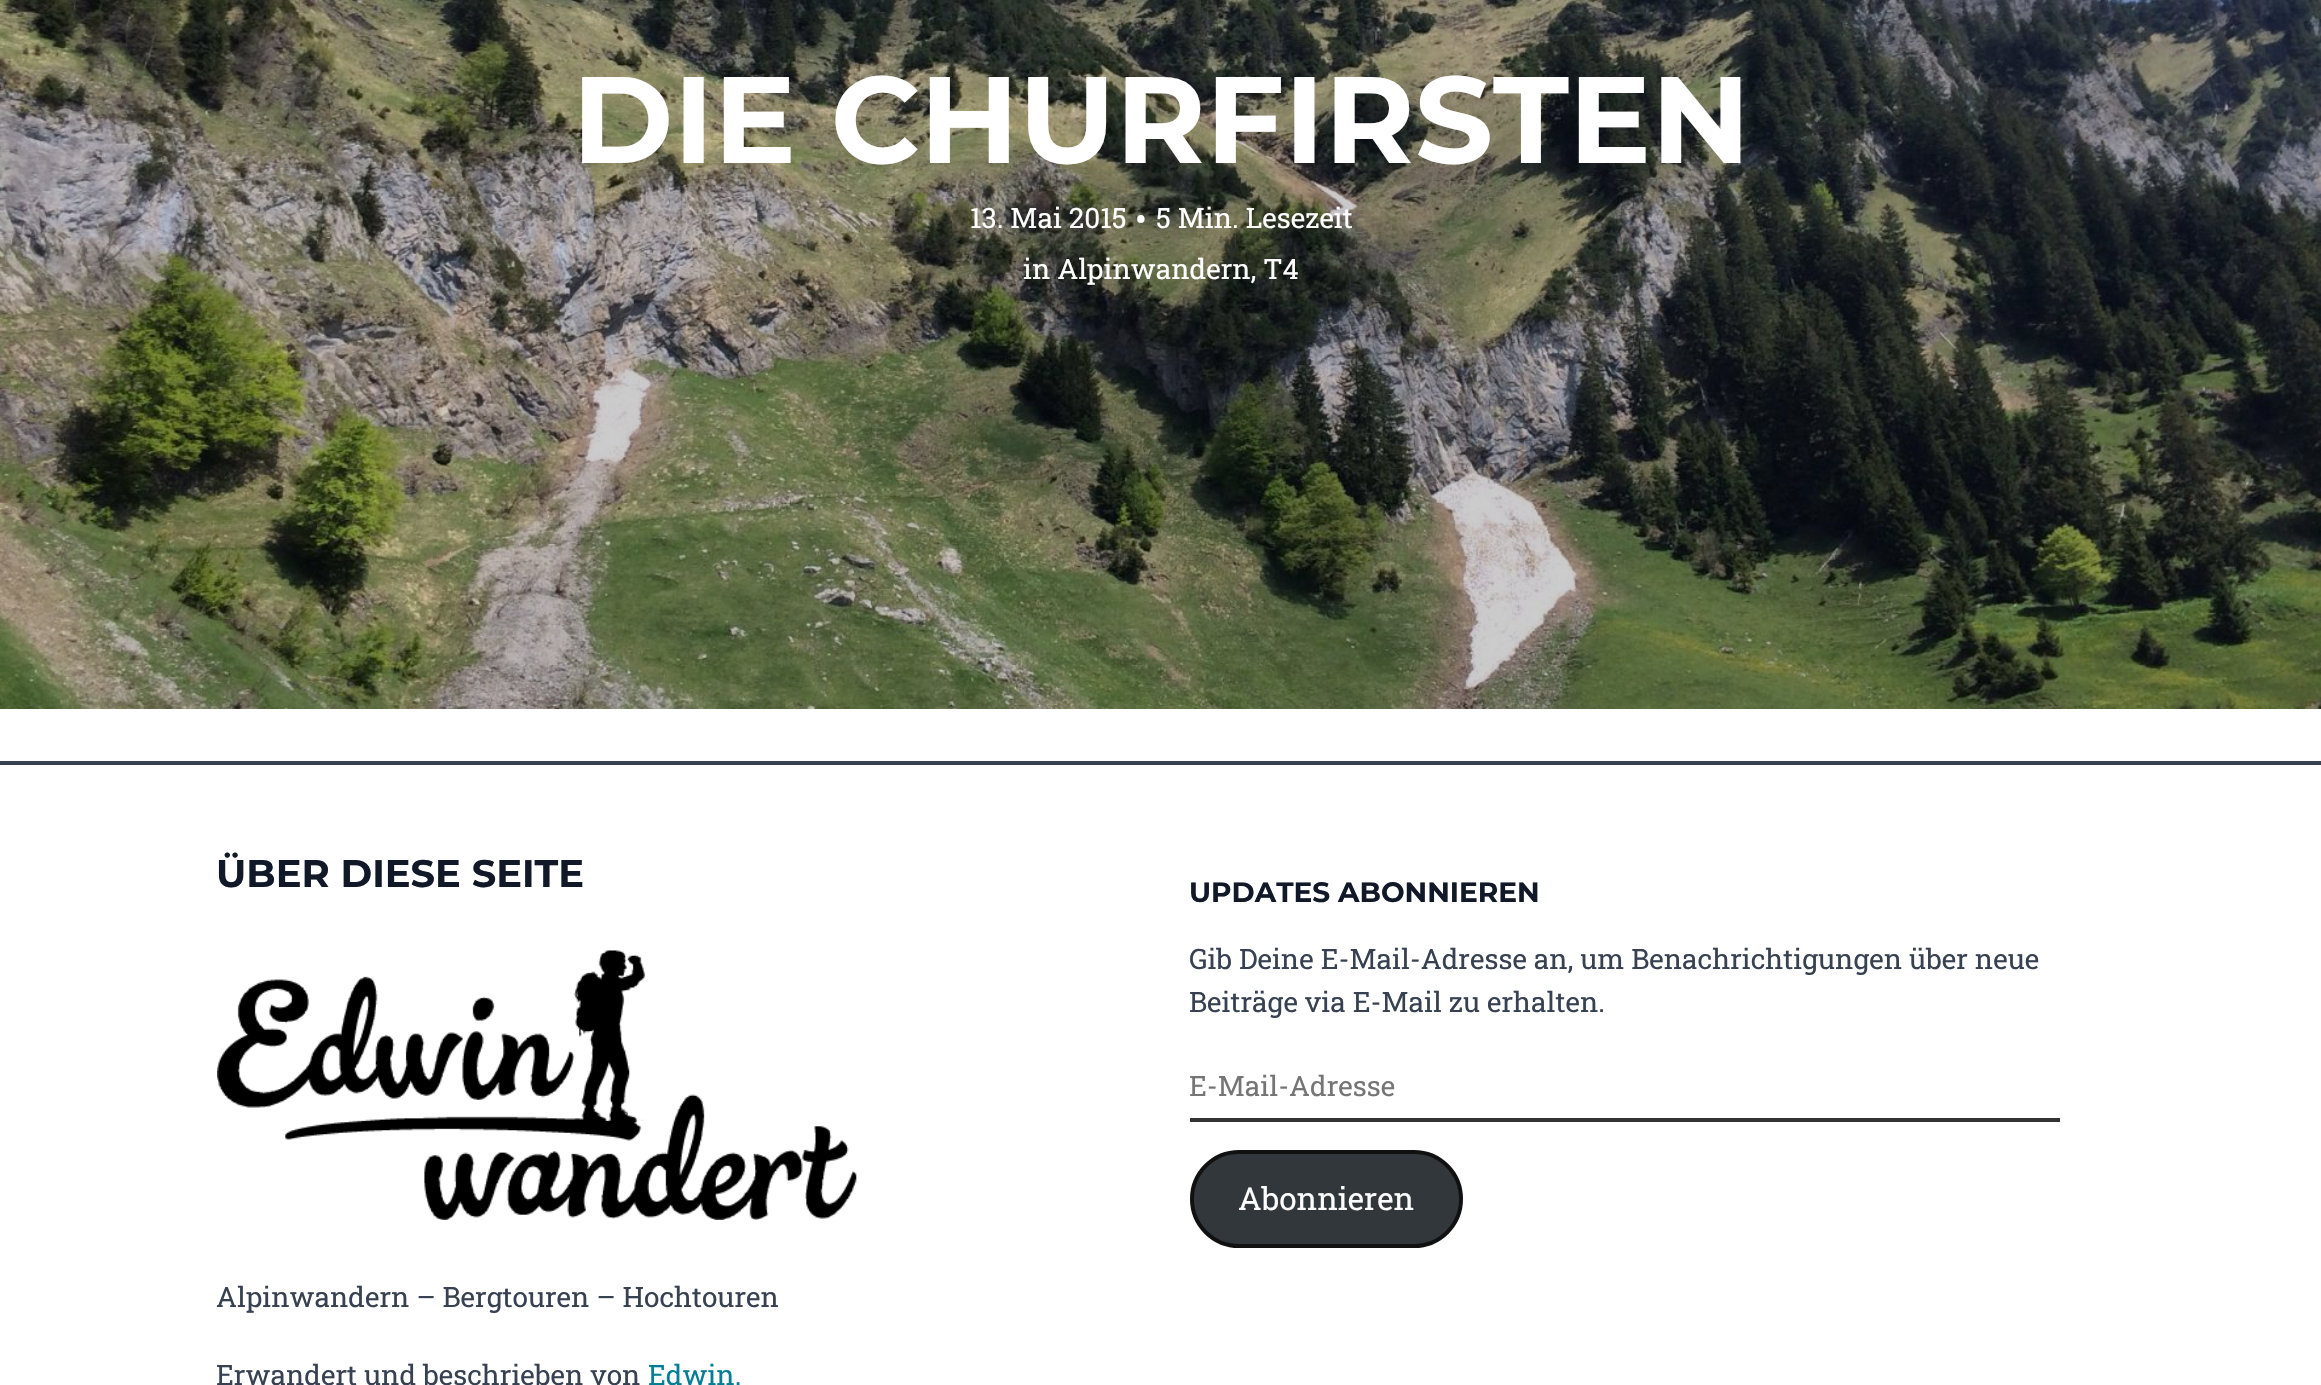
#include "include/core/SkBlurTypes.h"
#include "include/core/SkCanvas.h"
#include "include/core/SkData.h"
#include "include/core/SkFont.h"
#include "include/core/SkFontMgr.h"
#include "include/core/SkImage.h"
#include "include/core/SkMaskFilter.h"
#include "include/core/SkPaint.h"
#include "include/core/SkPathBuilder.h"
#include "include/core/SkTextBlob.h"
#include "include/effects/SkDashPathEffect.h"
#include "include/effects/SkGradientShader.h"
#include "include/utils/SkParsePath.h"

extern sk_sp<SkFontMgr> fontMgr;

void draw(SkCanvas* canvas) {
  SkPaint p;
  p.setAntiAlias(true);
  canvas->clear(SK_ColorWHITE);
  canvas->drawImageRect(SkImages::DeferredFromEncodedData(SkData::MakeFromFileName("images/1.png")), SkRect::MakeLTRB(0, 0, 2321, 709), SkSamplingOptions());
  p.setColor(SkColorSetRGB(55, 65, 81));
  canvas->drawRect(SkRect::MakeLTRB(0, 761, 2321, 765), p);
  canvas->drawImageRect(SkImages::DeferredFromEncodedData(SkData::MakeFromFileName("images/2.png")), SkRect::MakeLTRB(217, 950, 857, 1220), SkSamplingOptions());
  p.setColor(SkColorSetRGB(51, 51, 51));
  canvas->drawRect(SkRect::MakeLTRB(1190, 1118, 2060, 1122), p);
  p.setColor(SkColorSetRGB(50, 55, 60));
  canvas->drawRoundRect(SkRect::MakeLTRB(1192, 1152, 1461, 1246), 47, 47, p);
  p.setStyle(SkPaint::kStroke_Style);
  p.setStrokeWidth(4);
  p.setColor(SkColorSetRGB(17, 17, 18));
  canvas->drawRoundRect(SkRect::MakeLTRB(1192, 1152, 1461, 1246), 47, 47, p);
  SkFont font1(fontMgr->matchFamilyStyle("Montserrat", SkFontStyle::Bold()), 122.75f);
  font1.setSubpixel(true);
  p.setStyle(SkPaint::kFill_Style);
  p.setColor(SK_ColorWHITE);
  canvas->drawString("DIE CHURFIRSTEN", 572, 163, font1, p);
  SkFont font2(fontMgr->matchFamilyStyle("Roboto Slab", SkFontStyle::Normal()), 28);
  font2.setSubpixel(true);
  canvas->drawString("13. Mai 2015", 970, 228, font2, p);
  SkFont font3(fontMgr->matchFamilyStyle("Roboto Slab", SkFontStyle::Normal()), 35);
  font3.setSubpixel(true);
  canvas->drawString("•", 1135, 232, font3, p);
  canvas->drawString("5 Min. Lesezeit", 1156, 228, font2, p);
  canvas->drawString("in Alpinwandern, T4", 1023, 279, font2, p);
  SkFont font4(fontMgr->matchFamilyStyle("Montserrat", SkFontStyle::Bold()), 38.4f);
  font4.setSubpixel(true);
  p.setColor(SkColorSetRGB(17, 24, 39));
  canvas->drawString("ÜBER DIESE SEITE", 216, 887, font4, p);
  p.setColor(SkColorSetRGB(55, 65, 81));
  canvas->drawString("Alpinwandern – Bergtouren – Hochtouren", 216, 1307, font2, p);
  canvas->drawString("Erwandert und beschrieben von", 216, 1385, font2, p);
  p.setColor(SkColorSetRGB(1, 125, 150));
  canvas->drawString("Edwin.", 648, 1385, font2, p);
  SkFont font5(fontMgr->matchFamilyStyle("Montserrat", SkFontStyle::Bold()), 28);
  font5.setSubpixel(true);
  p.setColor(SkColorSetRGB(17, 24, 39));
  canvas->drawString("UPDATES ABONNIEREN", 1189, 902, font5, p);
  p.setColor(SkColorSetRGB(55, 65, 81));
  canvas->drawString("Gib Deine E-Mail-Adresse an, um Benachrichtigungen über neue", 1189, 969, font2, p);
  canvas->drawString("Beiträge via E-Mail zu erhalten.", 1189, 1012, font2, p);
  p.setColor(SkColorSetRGB(117, 117, 117));
  canvas->drawString("E-Mail-Adresse", 1189, 1096, font2, p);
  SkFont font6(fontMgr->matchFamilyStyle("Roboto Slab", SkFontStyle::Normal()), 31.5f);
  font6.setSubpixel(true);
  p.setColor(SK_ColorWHITE);
  canvas->drawString("Abonnieren", 1238, 1210, font6, p);
}
